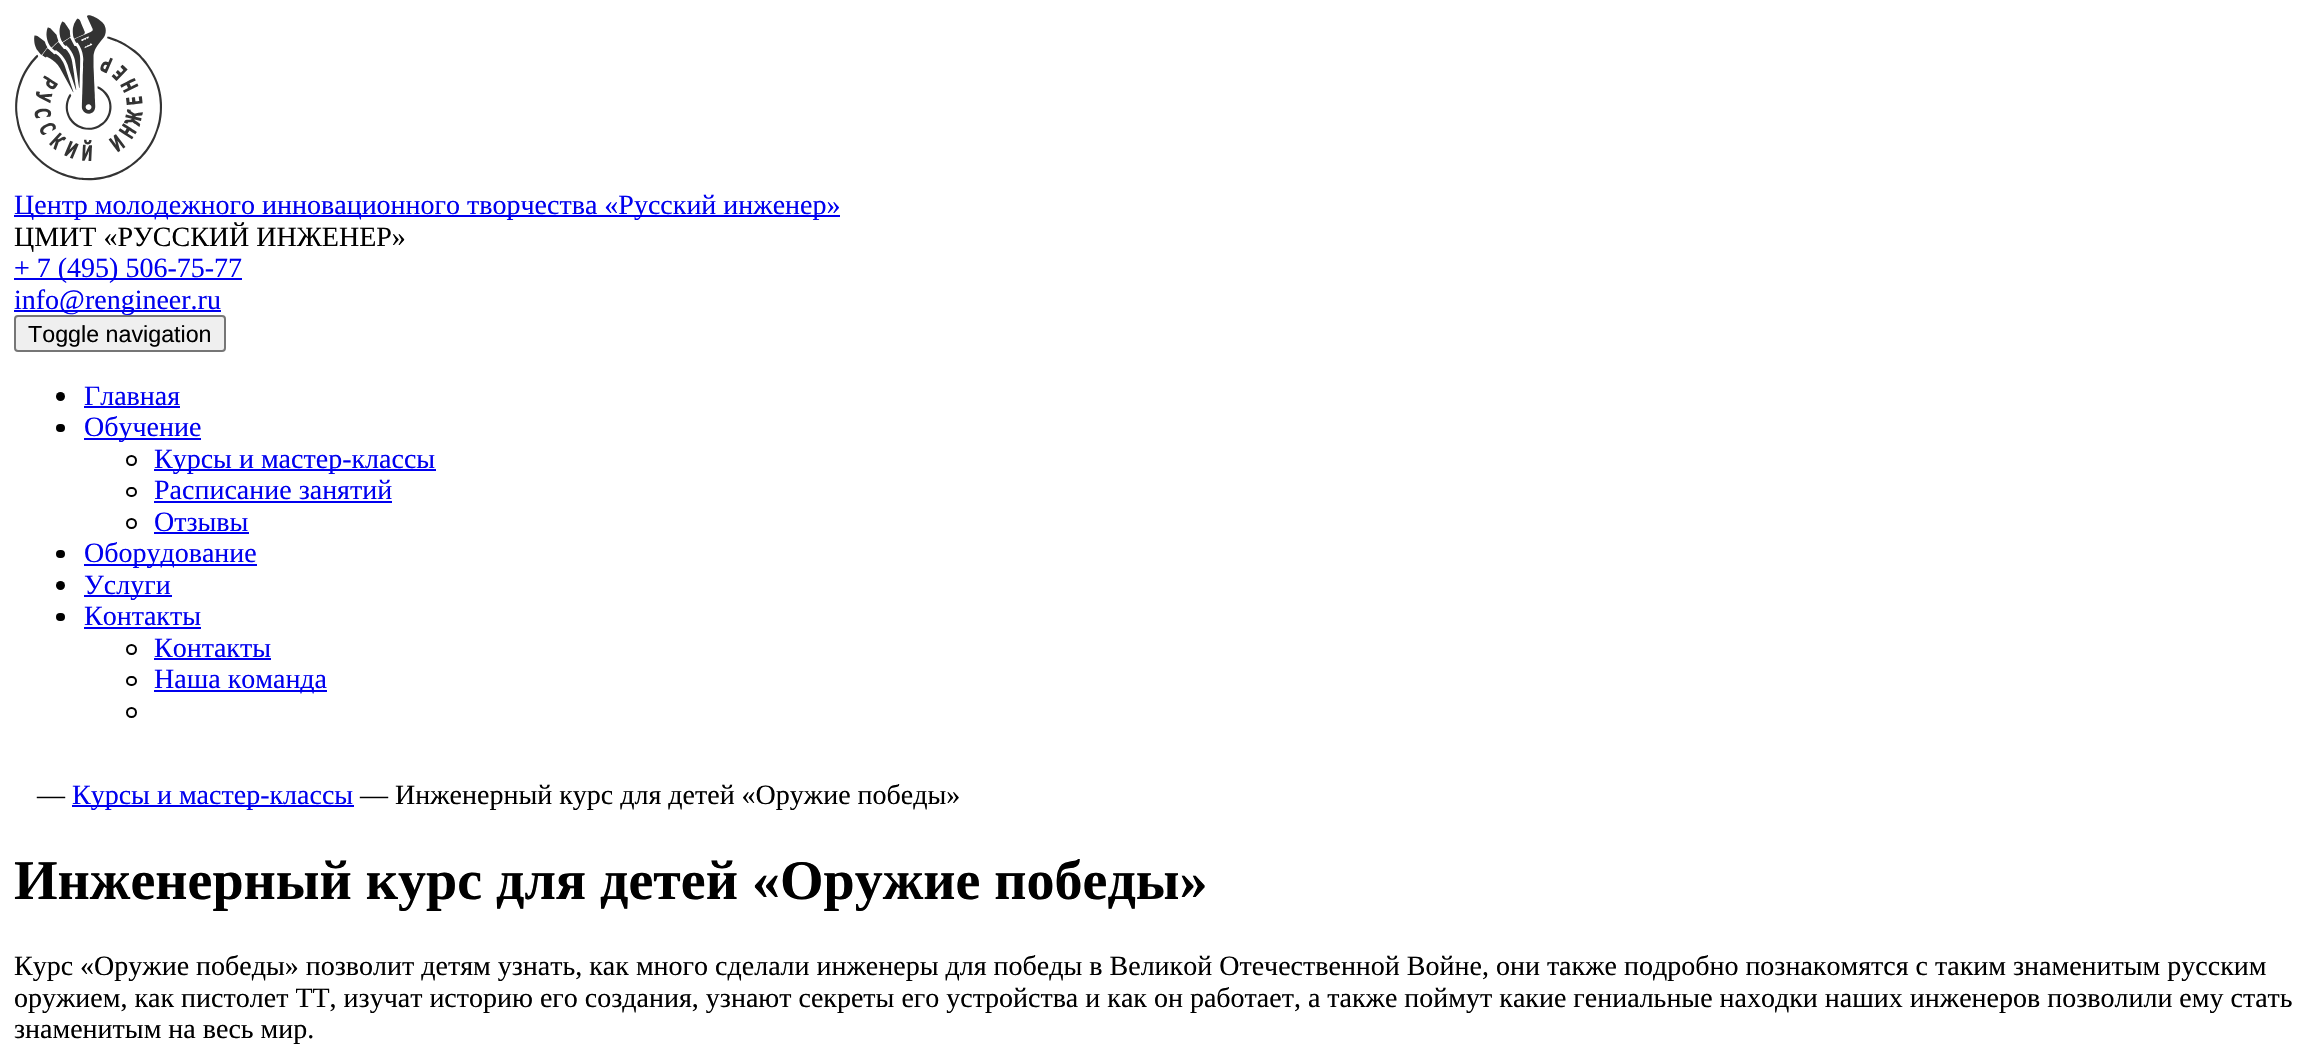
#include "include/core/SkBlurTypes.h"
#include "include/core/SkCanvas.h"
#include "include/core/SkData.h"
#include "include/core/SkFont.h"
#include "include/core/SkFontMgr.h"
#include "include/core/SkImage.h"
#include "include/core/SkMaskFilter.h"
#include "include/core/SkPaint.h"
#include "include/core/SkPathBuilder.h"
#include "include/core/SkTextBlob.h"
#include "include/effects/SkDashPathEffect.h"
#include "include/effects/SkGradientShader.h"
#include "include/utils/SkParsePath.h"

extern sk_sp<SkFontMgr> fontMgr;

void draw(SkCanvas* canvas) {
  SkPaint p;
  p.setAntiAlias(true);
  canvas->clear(SK_ColorWHITE);
  canvas->drawImageRect(SkImages::DeferredFromEncodedData(SkData::MakeFromFileName("images/1.png")), SkRect::MakeLTRB(15, 15, 162, 181), SkSamplingOptions());
  p.setColor(SkColorSetRGB(0, 0, 238));
  canvas->drawRect(SkRect::MakeLTRB(14, 215, 840, 217), p);
  canvas->drawRect(SkRect::MakeLTRB(14, 278, 242, 280), p);
  canvas->drawRect(SkRect::MakeLTRB(14, 310, 221, 312), p);
  p.setColor(SK_ColorBLACK);
  canvas->drawCircle(60.5f, 396.5f, 4.5f, p);
  p.setColor(SkColorSetRGB(0, 0, 238));
  canvas->drawRect(SkRect::MakeLTRB(84, 406, 180, 408), p);
  p.setColor(SK_ColorBLACK);
  canvas->drawRoundRect(SkRect::MakeLTRB(56, 424, 65, 432), 4, 4, p);
  p.setColor(SkColorSetRGB(0, 0, 238));
  canvas->drawRect(SkRect::MakeLTRB(84, 438, 201, 440), p);
  p.setStyle(SkPaint::kStroke_Style);
  p.setStrokeWidth(2);
  p.setColor(SK_ColorBLACK);
  canvas->drawCircle(131.5f, 460.5f, 4.5f, p);
  p.setStyle(SkPaint::kFill_Style);
  p.setColor(SkColorSetRGB(0, 0, 238));
  canvas->drawRect(SkRect::MakeLTRB(154, 469, 436, 471), p);
  p.setStyle(SkPaint::kStroke_Style);
  p.setColor(SK_ColorBLACK);
  canvas->drawRoundRect(SkRect::MakeLTRB(127, 488, 136, 496), 4, 4, p);
  p.setStyle(SkPaint::kFill_Style);
  p.setColor(SkColorSetRGB(0, 0, 238));
  canvas->drawRect(SkRect::MakeLTRB(154, 501, 392, 503), p);
  p.setStyle(SkPaint::kStroke_Style);
  p.setColor(SK_ColorBLACK);
  canvas->drawCircle(131.5f, 523.5f, 4.5f, p);
  p.setStyle(SkPaint::kFill_Style);
  p.setColor(SkColorSetRGB(0, 0, 238));
  canvas->drawRect(SkRect::MakeLTRB(154, 532, 249, 534), p);
  p.setColor(SK_ColorBLACK);
  canvas->drawRoundRect(SkRect::MakeLTRB(56, 550, 65, 558), 4, 4, p);
  p.setColor(SkColorSetRGB(0, 0, 238));
  canvas->drawRect(SkRect::MakeLTRB(84, 564, 257, 566), p);
  p.setColor(SK_ColorBLACK);
  canvas->drawCircle(60.5f, 585.5f, 4.5f, p);
  p.setColor(SkColorSetRGB(0, 0, 238));
  canvas->drawRect(SkRect::MakeLTRB(84, 595, 172, 597), p);
  p.setColor(SK_ColorBLACK);
  canvas->drawRoundRect(SkRect::MakeLTRB(56, 613, 65, 621), 4, 4, p);
  p.setColor(SkColorSetRGB(0, 0, 238));
  canvas->drawRect(SkRect::MakeLTRB(84, 627, 201, 629), p);
  p.setStyle(SkPaint::kStroke_Style);
  p.setColor(SK_ColorBLACK);
  canvas->drawCircle(131.5f, 649.5f, 4.5f, p);
  p.setStyle(SkPaint::kFill_Style);
  p.setColor(SkColorSetRGB(0, 0, 238));
  canvas->drawRect(SkRect::MakeLTRB(154, 658, 271, 660), p);
  p.setStyle(SkPaint::kStroke_Style);
  p.setColor(SK_ColorBLACK);
  canvas->drawRoundRect(SkRect::MakeLTRB(127, 677, 136, 685), 4, 4, p);
  p.setStyle(SkPaint::kFill_Style);
  p.setColor(SkColorSetRGB(0, 0, 238));
  canvas->drawRect(SkRect::MakeLTRB(154, 690, 327, 692), p);
  p.setStyle(SkPaint::kStroke_Style);
  p.setColor(SK_ColorBLACK);
  canvas->drawCircle(131.5f, 712.5f, 4.5f, p);
  p.setStyle(SkPaint::kFill_Style);
  p.setColor(SkColorSetRGB(0, 0, 238));
  canvas->drawRect(SkRect::MakeLTRB(72, 805, 354, 807), p);
  SkFont font1(fontMgr->matchFamilyStyle("Liberation Serif", SkFontStyle::Normal()), 28);
  font1.setSubpixel(true);
  canvas->drawString("Центр молодежного инновационного творчества «Русский инженер»", 14, 214, font1, p);
  p.setColor(SK_ColorBLACK);
  canvas->drawString("ЦМИТ «РУССКИЙ ИНЖЕНЕР»", 14, 246, font1, p);
  p.setColor(SkColorSetRGB(0, 0, 238));
  canvas->drawString("+ 7 (495) 506-75-77", 14, 277, font1, p);
  canvas->drawString("info@rengineer.ru", 14, 309, font1, p);
  p.setColor(SkColorSetRGB(239, 239, 239));
  canvas->drawRoundRect(SkRect::MakeLTRB(15, 316, 225, 351), 3, 3, p);
  p.setStyle(SkPaint::kStroke_Style);
  p.setColor(SkColorSetRGB(118, 118, 118));
  canvas->drawRoundRect(SkRect::MakeLTRB(15, 316, 225, 351), 3, 3, p);
  SkFont font2(fontMgr->matchFamilyStyle("Liberation Sans", SkFontStyle::Normal()), 23.25f);
  font2.setSubpixel(true);
  p.setStyle(SkPaint::kFill_Style);
  p.setColor(SK_ColorBLACK);
  canvas->drawString("Toggle navigation", 28, 342, font2, p);
  p.setColor(SkColorSetRGB(0, 0, 238));
  canvas->drawString("Главная", 84, 405, font1, p);
  canvas->drawString("Обучение", 84, 436, font1, p);
  canvas->drawString("Курсы и мастер-классы", 154, 468, font1, p);
  canvas->drawString("Расписание занятий", 154, 499, font1, p);
  canvas->drawString("Отзывы", 154, 531, font1, p);
  canvas->drawString("Оборудование", 84, 562, font1, p);
  canvas->drawString("Услуги", 84, 594, font1, p);
  canvas->drawString("Контакты", 84, 625, font1, p);
  canvas->drawString("Контакты", 154, 657, font1, p);
  canvas->drawString("Наша команда", 154, 688, font1, p);
  p.setColor(SK_ColorBLACK);
  canvas->drawString("—", 37, 804, font1, p);
  p.setColor(SkColorSetRGB(0, 0, 238));
  canvas->drawString("Курсы и мастер-классы", 72, 804, font1, p);
  p.setColor(SK_ColorBLACK);
  canvas->drawString("— Инженерный курс для детей «Оружие победы»", 360, 804, font1, p);
  SkFont font3(fontMgr->matchFamilyStyle("Liberation Serif", SkFontStyle::Bold()), 56);
  font3.setSubpixel(true);
  canvas->drawString("Инженерный курс для детей «Оружие победы»", 14, 899, font3, p);
  canvas->drawString("Курс «Оружие победы» позволит детям узнать, как много сделали инженеры для победы в Великой Отечественной Войне, они также подробно познакомятся с таким знаменитым русским", 14, 975, font1, p);
  canvas->drawString("оружием, как пистолет ТТ, изучат историю его создания, узнают секреты его устройства и как он работает, а также поймут какие гениальные находки наших инженеров позволили ему стать", 14, 1007, font1, p);
  canvas->drawString("знаменитым на весь мир.", 14, 1038, font1, p);
}
